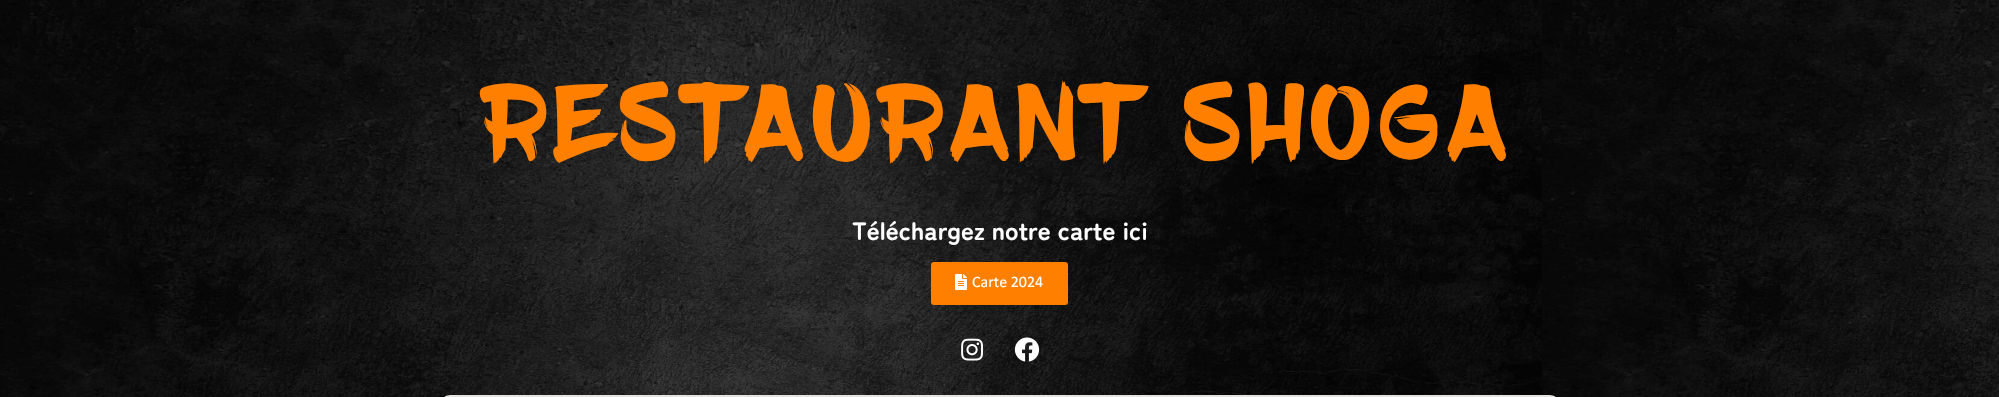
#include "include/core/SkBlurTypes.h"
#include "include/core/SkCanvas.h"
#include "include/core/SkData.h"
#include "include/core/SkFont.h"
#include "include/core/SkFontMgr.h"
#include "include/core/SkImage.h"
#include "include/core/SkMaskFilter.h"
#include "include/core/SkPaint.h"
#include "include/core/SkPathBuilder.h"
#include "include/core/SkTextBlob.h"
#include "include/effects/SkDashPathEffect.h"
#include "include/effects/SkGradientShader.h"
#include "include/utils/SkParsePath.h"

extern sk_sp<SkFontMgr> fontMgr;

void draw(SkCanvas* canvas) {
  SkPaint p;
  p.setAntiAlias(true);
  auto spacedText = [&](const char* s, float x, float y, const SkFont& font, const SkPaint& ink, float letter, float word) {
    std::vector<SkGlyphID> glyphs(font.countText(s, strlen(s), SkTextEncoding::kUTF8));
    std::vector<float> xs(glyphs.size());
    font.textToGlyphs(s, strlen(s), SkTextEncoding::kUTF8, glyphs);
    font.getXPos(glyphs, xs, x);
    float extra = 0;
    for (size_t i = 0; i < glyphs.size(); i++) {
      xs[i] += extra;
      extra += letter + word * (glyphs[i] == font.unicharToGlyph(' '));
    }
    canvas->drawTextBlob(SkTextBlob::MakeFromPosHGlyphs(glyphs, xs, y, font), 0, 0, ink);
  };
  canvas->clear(SK_ColorWHITE);
  canvas->drawImageRect(SkImages::DeferredFromEncodedData(SkData::MakeFromFileName("images/1.png")), SkRect::MakeLTRB(0, 0, 1999, 397), SkSamplingOptions());
  p.setColor(SkColorSetRGB(255, 127, 0));
  canvas->drawRoundRect(SkRect::MakeLTRB(931, 262, 1068, 305), 3, 3, p);
  canvas->drawImageRect(SkImages::DeferredFromEncodedData(SkData::MakeFromFileName("images/2.png")), SkRect::MakeLTRB(955, 274, 967, 290), SkSamplingOptions());
  canvas->drawImageRect(SkImages::DeferredFromEncodedData(SkData::MakeFromFileName("images/3.png")), SkRect::MakeLTRB(961, 338, 983, 361), SkSamplingOptions());
  canvas->drawImageRect(SkImages::DeferredFromEncodedData(SkData::MakeFromFileName("images/4.png")), SkRect::MakeLTRB(1014, 337, 1040, 362), SkSamplingOptions());
  canvas->drawImageRect(SkImages::DeferredFromEncodedData(SkData::MakeFromFileName("images/5.png")), SkRect::MakeLTRB(444, 395, 1556, 397), SkSamplingOptions());
  SkFont font1(fontMgr->matchFamilyStyle("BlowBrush", SkFontStyle::Normal()), 110);
  font1.setSubpixel(true);
  spacedText("RESTAURANT SHOGA", 484, 160, font1, p, 10, 0);
  SkFont font2(fontMgr->matchFamilyStyle("Zen Maru Gothic", SkFontStyle::Bold()), 25);
  font2.setSubpixel(true);
  p.setColor(SK_ColorWHITE);
  canvas->drawString("Téléchargez notre carte ici", 852, 240, font2, p);
  SkFont font3(fontMgr->matchFamilyStyle("Calibri", SkFontStyle::Normal()), 16);
  font3.setSubpixel(true);
  canvas->drawString("Carte 2024", 972, 287, font3, p);
}
